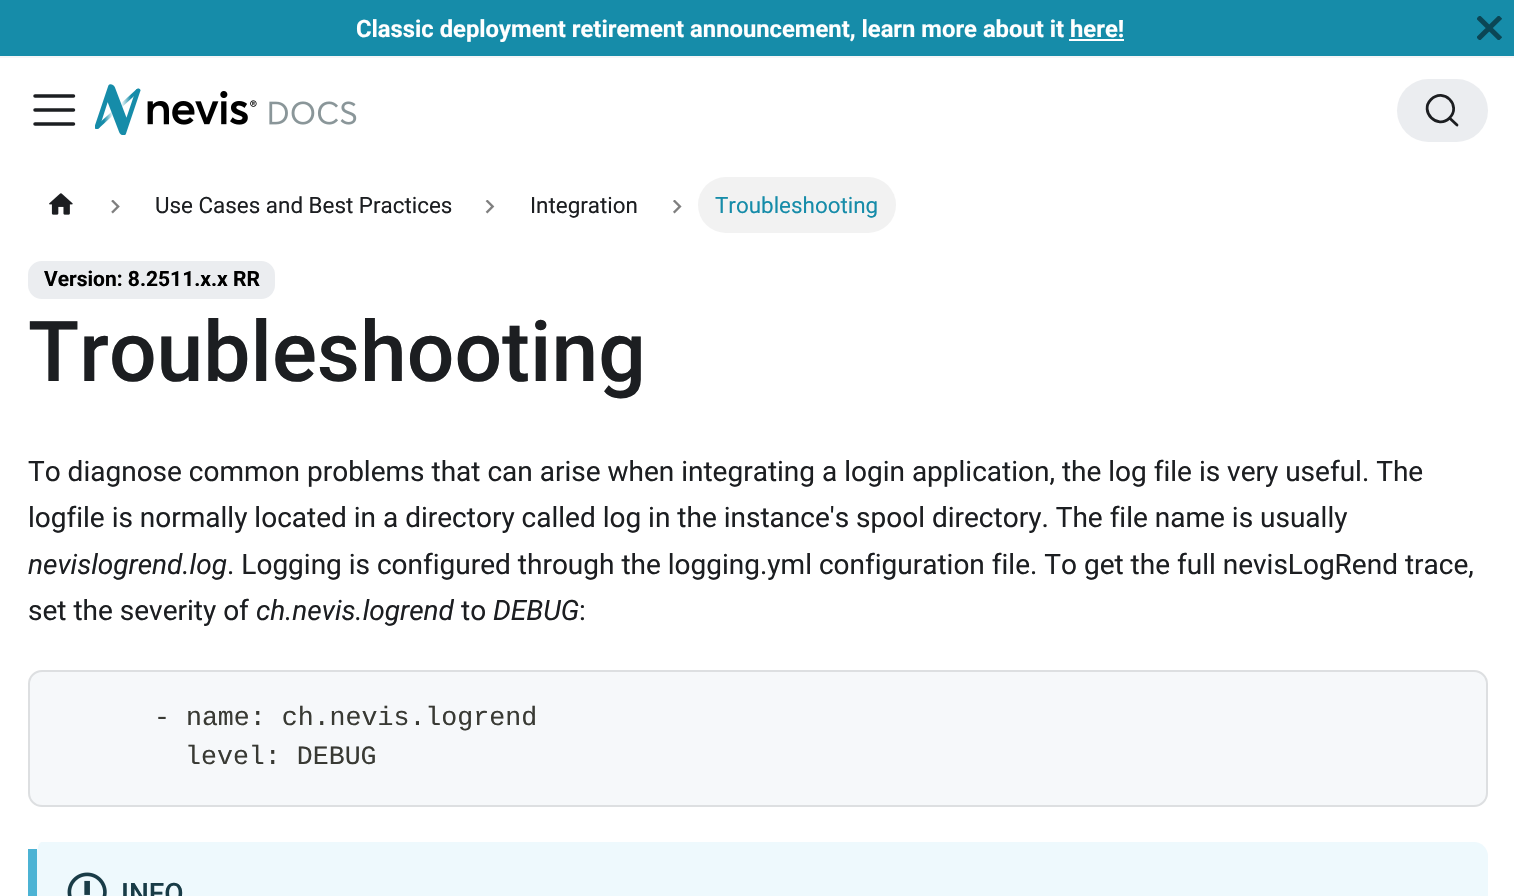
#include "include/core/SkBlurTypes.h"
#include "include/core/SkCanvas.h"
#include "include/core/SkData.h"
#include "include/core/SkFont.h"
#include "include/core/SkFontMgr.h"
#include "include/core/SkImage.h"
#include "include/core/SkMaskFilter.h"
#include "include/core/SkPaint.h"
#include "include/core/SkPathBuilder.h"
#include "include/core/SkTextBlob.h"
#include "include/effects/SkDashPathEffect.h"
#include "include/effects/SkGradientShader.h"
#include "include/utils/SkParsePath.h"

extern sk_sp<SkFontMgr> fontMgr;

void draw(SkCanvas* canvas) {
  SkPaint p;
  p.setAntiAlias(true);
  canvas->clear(SK_ColorWHITE);
  p.setColor(SkColorSetRGB(22, 140, 169));
  canvas->drawRect(SkRect::MakeLTRB(0, 0, 1514, 56), p);
  p.setColor(SkColorSetRGB(245, 246, 247));
  canvas->drawRect(SkRect::MakeLTRB(0, 56, 1514, 58), p);
  p.setColor(SK_ColorWHITE);
  canvas->drawRect(SkRect::MakeLTRB(1069, 39, 1124, 41), p);
  canvas->save();
  canvas->clipRect(SkRect::MakeLTRB(1477, 16, 1502, 40));
  p.setStyle(SkPaint::kStroke_Style);
  p.setStrokeWidth(5.1f);
  p.setColor(SkColorSetRGB(11, 70, 85));
  canvas->drawPath(SkPathBuilder().moveTo(1478, 17).lineTo(1500.5f, 39).moveTo(1500.5f, 17).lineTo(1478, 39).detach(), p);
  canvas->restore();
  p.setStrokeWidth(3.5f);
  p.setStrokeCap(SkPaint::kRound_Cap);
  p.setColor(SkColorSetRGB(28, 30, 33));
  canvas->drawPath(SkPathBuilder().moveTo(35, 96).lineTo(73.5f, 96).moveTo(35, 110).lineTo(73.5f, 110).moveTo(35, 124).lineTo(73.5f, 124).detach(), p);
  canvas->drawImageRect(SkImages::DeferredFromEncodedData(SkData::MakeFromFileName("images/1.png")), SkRect::MakeLTRB(95, 84, 357, 135), SkSamplingOptions());
  p.setStyle(SkPaint::kFill_Style);
  p.setColor(SkColorSetRGB(235, 237, 240));
  canvas->drawRoundRect(SkRect::MakeLTRB(1397, 79, 1488, 142), 31.5f, 31.5f, p);
  p.setStyle(SkPaint::kStroke_Style);
  p.setStrokeWidth(2.8f);
  p.setStrokeJoin(SkPaint::kRound_Join);
  p.setColor(SkColorSetRGB(28, 30, 33));
  canvas->drawPath(SkPathBuilder().moveTo(1449.5f, 118).lineTo(1457, 125).lineTo(1449.5f, 118).cubicTo(1437.5f, 130, 1419, 111.5f, 1431, 99.5f).cubicTo(1443.5f, 87, 1462, 105.5f, 1449.5f, 118).close().detach(), p);
  canvas->drawImageRect(SkImages::DeferredFromEncodedData(SkData::MakeFromFileName("images/2.png")), SkRect::MakeLTRB(49, 193, 73, 215), SkSamplingOptions());
  canvas->drawImageRect(SkImages::DeferredFromEncodedData(SkData::MakeFromFileName("images/3.png")), SkRect::MakeLTRB(111, 200, 120, 214), SkSamplingOptions());
  canvas->drawImageRect(SkImages::DeferredFromEncodedData(SkData::MakeFromFileName("images/4.png")), SkRect::MakeLTRB(485, 200, 495, 214), SkSamplingOptions());
  canvas->drawImageRect(SkImages::DeferredFromEncodedData(SkData::MakeFromFileName("images/5.png")), SkRect::MakeLTRB(673, 200, 682, 214), SkSamplingOptions());
  p.setStyle(SkPaint::kFill_Style);
  p.setColor(SkColorSetRGB(242, 242, 242));
  canvas->drawRoundRect(SkRect::MakeLTRB(698, 177, 896, 233), 28, 28, p);
  p.setColor(SkColorSetRGB(235, 237, 240));
  canvas->drawRoundRect(SkRect::MakeLTRB(29, 262, 274, 298), 13, 13, p);
  p.setStyle(SkPaint::kStroke_Style);
  p.setStrokeWidth(2);
  p.setStrokeCap(SkPaint::kButt_Cap);
  p.setStrokeJoin(SkPaint::kMiter_Join);
  canvas->drawRoundRect(SkRect::MakeLTRB(29, 262, 274, 298), 13, 13, p);
  p.setStyle(SkPaint::kFill_Style);
  p.setColor(SkColorSetRGB(246, 248, 250));
  canvas->drawRoundRect(SkRect::MakeLTRB(29, 671, 1487, 806), 13, 13, p);
  p.setStyle(SkPaint::kStroke_Style);
  p.setColor(SkColorSetRGB(221, 223, 225));
  canvas->drawRoundRect(SkRect::MakeLTRB(29, 671, 1487, 806), 13, 13, p);
  p.setStyle(SkPaint::kFill_Style);
  p.setColor(SkColorSetRGB(238, 249, 253));
  canvas->drawPath(SkPathBuilder().moveTo(42, 842).lineTo(1474, 842).cubicTo(1481, 842, 1488, 848, 1488, 856).lineTo(1488, 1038).cubicTo(1488, 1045, 1481, 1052, 1474, 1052).lineTo(42, 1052).cubicTo(39, 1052, 37, 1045, 37, 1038).lineTo(37, 856).cubicTo(37, 848, 39, 842, 42, 842).close().detach(), p);
  p.setColor(SkColorSetRGB(76, 179, 212));
  canvas->drawRect(SkRect::MakeLTRB(28, 849, 37, 896), p);
  canvas->drawImageRect(SkImages::DeferredFromEncodedData(SkData::MakeFromFileName("images/6.png")), SkRect::MakeLTRB(67, 872, 107, 896), SkSamplingOptions());
  SkFont font1(fontMgr->matchFamilyStyle("Roboto", SkFontStyle::Bold()), 23.8f);
  font1.setSubpixel(true);
  p.setColor(SK_ColorWHITE);
  canvas->drawString("Classic deployment retirement announcement, learn more about it", 356, 37, font1, p);
  canvas->drawString("here!", 1070, 37, font1, p);
  SkFont font2(fontMgr->matchFamilyStyle("Roboto", SkFontStyle::Normal()), 22.4f);
  font2.setSubpixel(true);
  p.setColor(SkColorSetRGB(28, 30, 33));
  canvas->drawString("Use Cases and Best Practices", 155, 213, font2, p);
  canvas->drawString("Integration", 530, 213, font2, p);
  p.setColor(SkColorSetRGB(22, 140, 169));
  canvas->drawString("Troubleshooting", 715, 213, font2, p);
  SkFont font3(fontMgr->matchFamilyStyle("Roboto", SkFontStyle::Bold()), 21);
  font3.setSubpixel(true);
  p.setColor(SK_ColorBLACK);
  canvas->drawString("Version: 8.2511.x.x RR", 44, 286, font3, p);
  SkFont font4(fontMgr->matchFamilyStyle("Roboto", SkFontStyle(500, SkFontStyle::kNormal_Width, SkFontStyle::kUpright_Slant)), 84);
  font4.setSubpixel(true);
  p.setColor(SkColorSetRGB(28, 30, 33));
  canvas->drawString("Troubleshooting", 28, 381, font4, p);
  SkFont font5(fontMgr->matchFamilyStyle("Roboto", SkFontStyle::Normal()), 28);
  font5.setSubpixel(true);
  canvas->drawString("To diagnose common problems that can arise when integrating a login application, the log file is very useful. The", 28, 481, font5, p);
  canvas->drawString("logfile is normally located in a directory called log in the instance's spool directory. The file name is usually", 28, 527, font5, p);
  SkFont font6(fontMgr->matchFamilyStyle("Roboto", SkFontStyle::Italic()), 28);
  font6.setSubpixel(true);
  canvas->drawString("nevislogrend.log", 28, 574, font6, p);
  canvas->drawString(". Logging is configured through the logging.yml configuration file. To get the full nevisLogRend trace,", 227, 574, font5, p);
  canvas->drawString("set the severity of", 28, 620, font5, p);
  canvas->drawString("ch.nevis.logrend", 256, 620, font6, p);
  canvas->drawString("to", 461, 620, font5, p);
  canvas->drawString("DEBUG", 493, 620, font6, p);
  canvas->drawString(":", 579, 620, font5, p);
  SkFont font7(fontMgr->matchFamilyStyle("Liberation Mono", SkFontStyle::Normal()), 26.6f);
  font7.setSubpixel(true);
  p.setColor(SkColorSetRGB(57, 58, 52));
  canvas->drawString("- name: ch.nevis.logrend", 154, 725, font7, p);
  canvas->drawString("level: DEBUG", 185, 764, font7, p);
  SkFont font8(fontMgr->matchFamilyStyle("Roboto", SkFontStyle(500, SkFontStyle::kNormal_Width, SkFontStyle::kUpright_Slant)), 28);
  font8.setSubpixel(true);
  p.setColor(SkColorSetRGB(25, 60, 71));
  canvas->drawString("INFO", 121, 903, font8, p);
}
